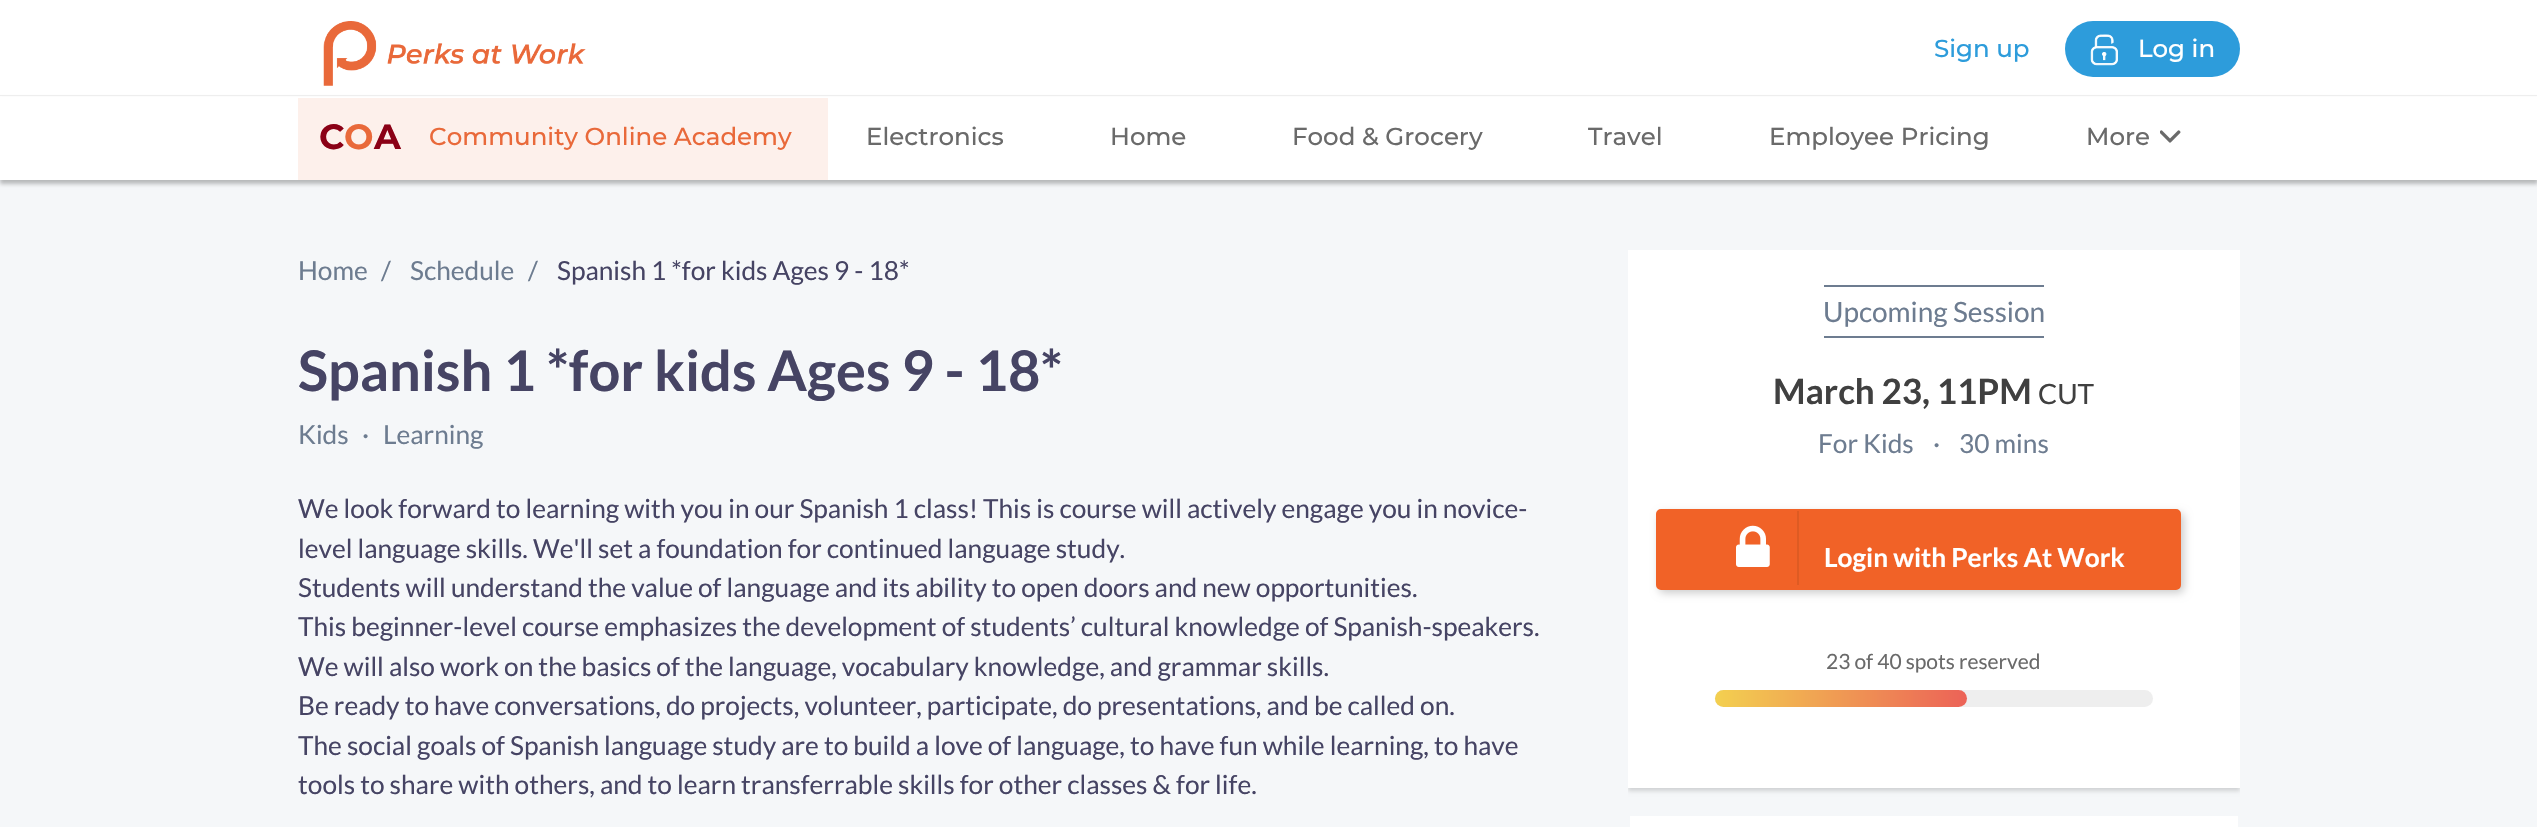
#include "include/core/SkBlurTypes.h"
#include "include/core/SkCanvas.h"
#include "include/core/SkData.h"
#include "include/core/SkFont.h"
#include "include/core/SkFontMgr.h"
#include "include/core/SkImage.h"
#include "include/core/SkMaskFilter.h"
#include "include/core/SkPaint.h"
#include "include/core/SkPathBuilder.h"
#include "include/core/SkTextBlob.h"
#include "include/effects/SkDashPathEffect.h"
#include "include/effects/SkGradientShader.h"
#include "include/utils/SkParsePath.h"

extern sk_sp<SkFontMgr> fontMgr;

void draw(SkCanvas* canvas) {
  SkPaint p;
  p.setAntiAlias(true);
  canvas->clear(SK_ColorWHITE);
  p.setColor(SkColorSetRGB(239, 239, 239));
  canvas->drawRect(SkRect::MakeLTRB(0, 95, 2537, 96), p);
  canvas->drawImageRect(SkImages::DeferredFromEncodedData(SkData::MakeFromFileName("images/1.png")), SkRect::MakeLTRB(323, 21, 586, 86), SkSamplingOptions());
  p.setColor(SkColorSetRGB(45, 156, 219));
  canvas->drawRoundRect(SkRect::MakeLTRB(2065, 21, 2240, 77), 28, 28, p);
  canvas->drawImageRect(SkImages::DeferredFromEncodedData(SkData::MakeFromFileName("images/2.png")), SkRect::MakeLTRB(2090, 34, 2118, 66), SkSamplingOptions());
  p.setColor(SkColorSetRGB(245, 247, 249));
  canvas->drawRect(SkRect::MakeLTRB(0, 180, 2537, 827), p);
  p.setColor(SkColorSetARGB(64, 0, 0, 0));
  p.setMaskFilter(SkMaskFilter::MakeBlur(kNormal_SkBlurStyle, 2));
  canvas->drawRect(SkRect::MakeLTRB(0, 100, 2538, 184), p);
  p.setMaskFilter(nullptr);
  p.setColor(SK_ColorWHITE);
  canvas->drawRect(SkRect::MakeLTRB(0, 97, 2537, 180), p);
  p.setColor(SkColorSetRGB(253, 240, 235));
  canvas->drawRect(SkRect::MakeLTRB(298, 98, 828, 180), p);
  canvas->drawImageRect(SkImages::DeferredFromEncodedData(SkData::MakeFromFileName("images/3.png")), SkRect::MakeLTRB(2160, 130, 2181, 143), SkSamplingOptions());
  canvas->save();
  canvas->clipRect(SkRect::MakeLTRB(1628, 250, 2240, 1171));
  p.setColor(SkColorSetARGB(38, 0, 0, 0));
  p.setMaskFilter(SkMaskFilter::MakeBlur(kNormal_SkBlurStyle, 2));
  canvas->drawRect(SkRect::MakeLTRB(1628, 254, 2240, 791), p);
  p.setMaskFilter(nullptr);
  canvas->restore();
  p.setColor(SK_ColorWHITE);
  canvas->drawRect(SkRect::MakeLTRB(1628, 250, 2240, 788), p);
  p.setColor(SkColorSetRGB(109, 124, 144));
  canvas->drawRect(SkRect::MakeLTRB(1824, 285, 2044, 287), p);
  canvas->drawRect(SkRect::MakeLTRB(1824, 336, 2044, 338), p);
  p.setColor(SkColorSetRGB(204, 204, 204));
  p.setMaskFilter(SkMaskFilter::MakeBlur(kNormal_SkBlurStyle, 4.5f));
  canvas->drawRoundRect(SkRect::MakeLTRB(1659, 513, 2184, 593), 5, 5, p);
  p.setMaskFilter(nullptr);
  p.setColor(SkColorSetRGB(241, 98, 39));
  canvas->drawRoundRect(SkRect::MakeLTRB(1657, 510, 2180, 589), 4, 4, p);
  p.setStyle(SkPaint::kStroke_Style);
  p.setStrokeWidth(2);
  canvas->drawRoundRect(SkRect::MakeLTRB(1657, 510, 2180, 589), 4, 4, p);
  p.setStyle(SkPaint::kFill_Style);
  p.setColor(SkColorSetRGB(222, 91, 35));
  canvas->drawRect(SkRect::MakeLTRB(1797, 511, 1799, 585), p);
  canvas->drawImageRect(SkImages::DeferredFromEncodedData(SkData::MakeFromFileName("images/4.png")), SkRect::MakeLTRB(1736, 525, 1770, 567), SkSamplingOptions());
  p.setColor(SkColorSetRGB(238, 238, 238));
  canvas->drawRoundRect(SkRect::MakeLTRB(1715, 690, 2153, 707), 8.5f, 8.5f, p);
  {
    const SkColor colors[] = {SkColorSetRGB(243, 208, 80), SkColorSetRGB(236, 98, 87)};
    const float stops[] = {0, 1};
    const SkPoint ends[] = {{1715, 698}, {1967, 698}};
    p.setShader(SkGradientShader::MakeLinear(ends, colors, stops, 2, SkTileMode::kClamp));
    p.setAlpha(255);
  }
  canvas->drawRoundRect(SkRect::MakeLTRB(1715, 690, 1967, 707), 8.5f, 8.5f, p);
  p.setShader(nullptr);
  p.setColor(SK_ColorWHITE);
  canvas->drawRect(SkRect::MakeLTRB(1630, 816, 2238, 827), p);
  SkFont font1(fontMgr->matchFamilyStyle("Montserrat", SkFontStyle(500, SkFontStyle::kNormal_Width, SkFontStyle::kUpright_Slant)), 24.5f);
  font1.setSubpixel(true);
  p.setColor(SkColorSetRGB(45, 156, 219));
  canvas->drawString("Sign up", 1934, 57, font1, p);
  p.setColor(SK_ColorWHITE);
  canvas->drawString("Log in", 2138, 57, font1, p);
  SkFont font2(fontMgr->matchFamilyStyle("Montserrat", SkFontStyle::Bold()), 35);
  font2.setSubpixel(true);
  p.setColor(SkColorSetRGB(139, 1, 22));
  canvas->drawString("C", 319, 149, font2, p);
  p.setColor(SkColorSetRGB(233, 105, 58));
  canvas->drawString("O", 344, 149, font2, p);
  p.setColor(SkColorSetRGB(139, 1, 22));
  canvas->drawString("A", 374, 149, font2, p);
  p.setColor(SkColorSetRGB(233, 105, 58));
  canvas->drawString("Community Online Academy", 429, 145, font1, p);
  p.setColor(SkColorSetRGB(106, 106, 106));
  canvas->drawString("Electronics", 866, 145, font1, p);
  canvas->drawString("Home", 1110, 145, font1, p);
  canvas->drawString("Food & Grocery", 1292, 145, font1, p);
  canvas->drawString("Travel", 1588, 145, font1, p);
  canvas->drawString("Employee Pricing", 1769, 145, font1, p);
  canvas->drawString("More", 2086, 145, font1, p);
  SkFont font3(fontMgr->matchFamilyStyle("Lato", SkFontStyle::Normal()), 26.25f);
  font3.setSubpixel(true);
  p.setColor(SkColorSetRGB(109, 124, 144));
  canvas->drawString("Home", 298, 280, font3, p);
  canvas->drawString("/", 381, 280, font3, p);
  canvas->drawString("Schedule", 410, 280, font3, p);
  canvas->drawString("/", 528, 280, font3, p);
  p.setColor(SkColorSetRGB(70, 68, 100));
  canvas->drawString("Spanish 1 *for kids Ages 9 - 18*", 557, 280, font3, p);
  SkFont font4(fontMgr->matchFamilyStyle("Lato", SkFontStyle::Bold()), 56);
  font4.setSubpixel(true);
  canvas->drawString("Spanish 1 *for kids Ages 9 - 18*", 298, 391, font4, p);
  p.setColor(SkColorSetRGB(109, 124, 144));
  canvas->drawString("Kids", 298, 444, font3, p);
  canvas->drawString("·", 362, 444, font3, p);
  canvas->drawString("Learning", 383, 444, font3, p);
  p.setColor(SkColorSetRGB(70, 68, 100));
  canvas->drawString("We look forward to learning with you in our Spanish 1 class! This is course will actively engage you in novice-", 298, 518, font3, p);
  canvas->drawString("level language skills. We'll set a foundation for continued language study.", 298, 558, font3, p);
  canvas->drawString("Students will understand the value of language and its ability to open doors and new opportunities.", 298, 597, font3, p);
  canvas->drawString("This beginner-level course emphasizes the development of students’ cultural knowledge of Spanish-speakers.", 298, 636, font3, p);
  canvas->drawString("We will also work on the basics of the language, vocabulary knowledge, and grammar skills.", 298, 676, font3, p);
  canvas->drawString("Be ready to have conversations, do projects, volunteer, participate, do presentations, and be called on.", 298, 715, font3, p);
  canvas->drawString("The social goals of Spanish language study are to build a love of language, to have fun while learning, to have", 298, 755, font3, p);
  canvas->drawString("tools to share with others, and to learn transferrable skills for other classes & for life.", 298, 794, font3, p);
  SkFont font5(fontMgr->matchFamilyStyle("Lato", SkFontStyle::Normal()), 28);
  font5.setSubpixel(true);
  p.setColor(SkColorSetRGB(109, 124, 144));
  canvas->drawString("Upcoming Session", 1823, 322, font5, p);
  SkFont font6(fontMgr->matchFamilyStyle("Lato", SkFontStyle::Bold()), 35);
  font6.setSubpixel(true);
  p.setColor(SkColorSetRGB(64, 64, 64));
  canvas->drawString("March 23, 11PM", 1773, 404, font6, p);
  canvas->drawString("CUT", 2038, 404, font5, p);
  p.setColor(SkColorSetRGB(109, 124, 144));
  canvas->drawString("For Kids", 1818, 453, font3, p);
  canvas->drawString("·", 1933, 453, font3, p);
  canvas->drawString("30 mins", 1959, 453, font3, p);
  SkFont font7(fontMgr->matchFamilyStyle("Lato", SkFontStyle::Bold()), 26.25f);
  font7.setSubpixel(true);
  p.setColor(SK_ColorWHITE);
  canvas->drawString("Login with Perks At Work", 1824, 567, font7, p);
  SkFont font8(fontMgr->matchFamilyStyle("Lato", SkFontStyle::Normal()), 21);
  font8.setSubpixel(true);
  p.setColor(SkColorSetRGB(106, 106, 106));
  canvas->drawString("23 of 40 spots reserved", 1826, 669, font8, p);
}
